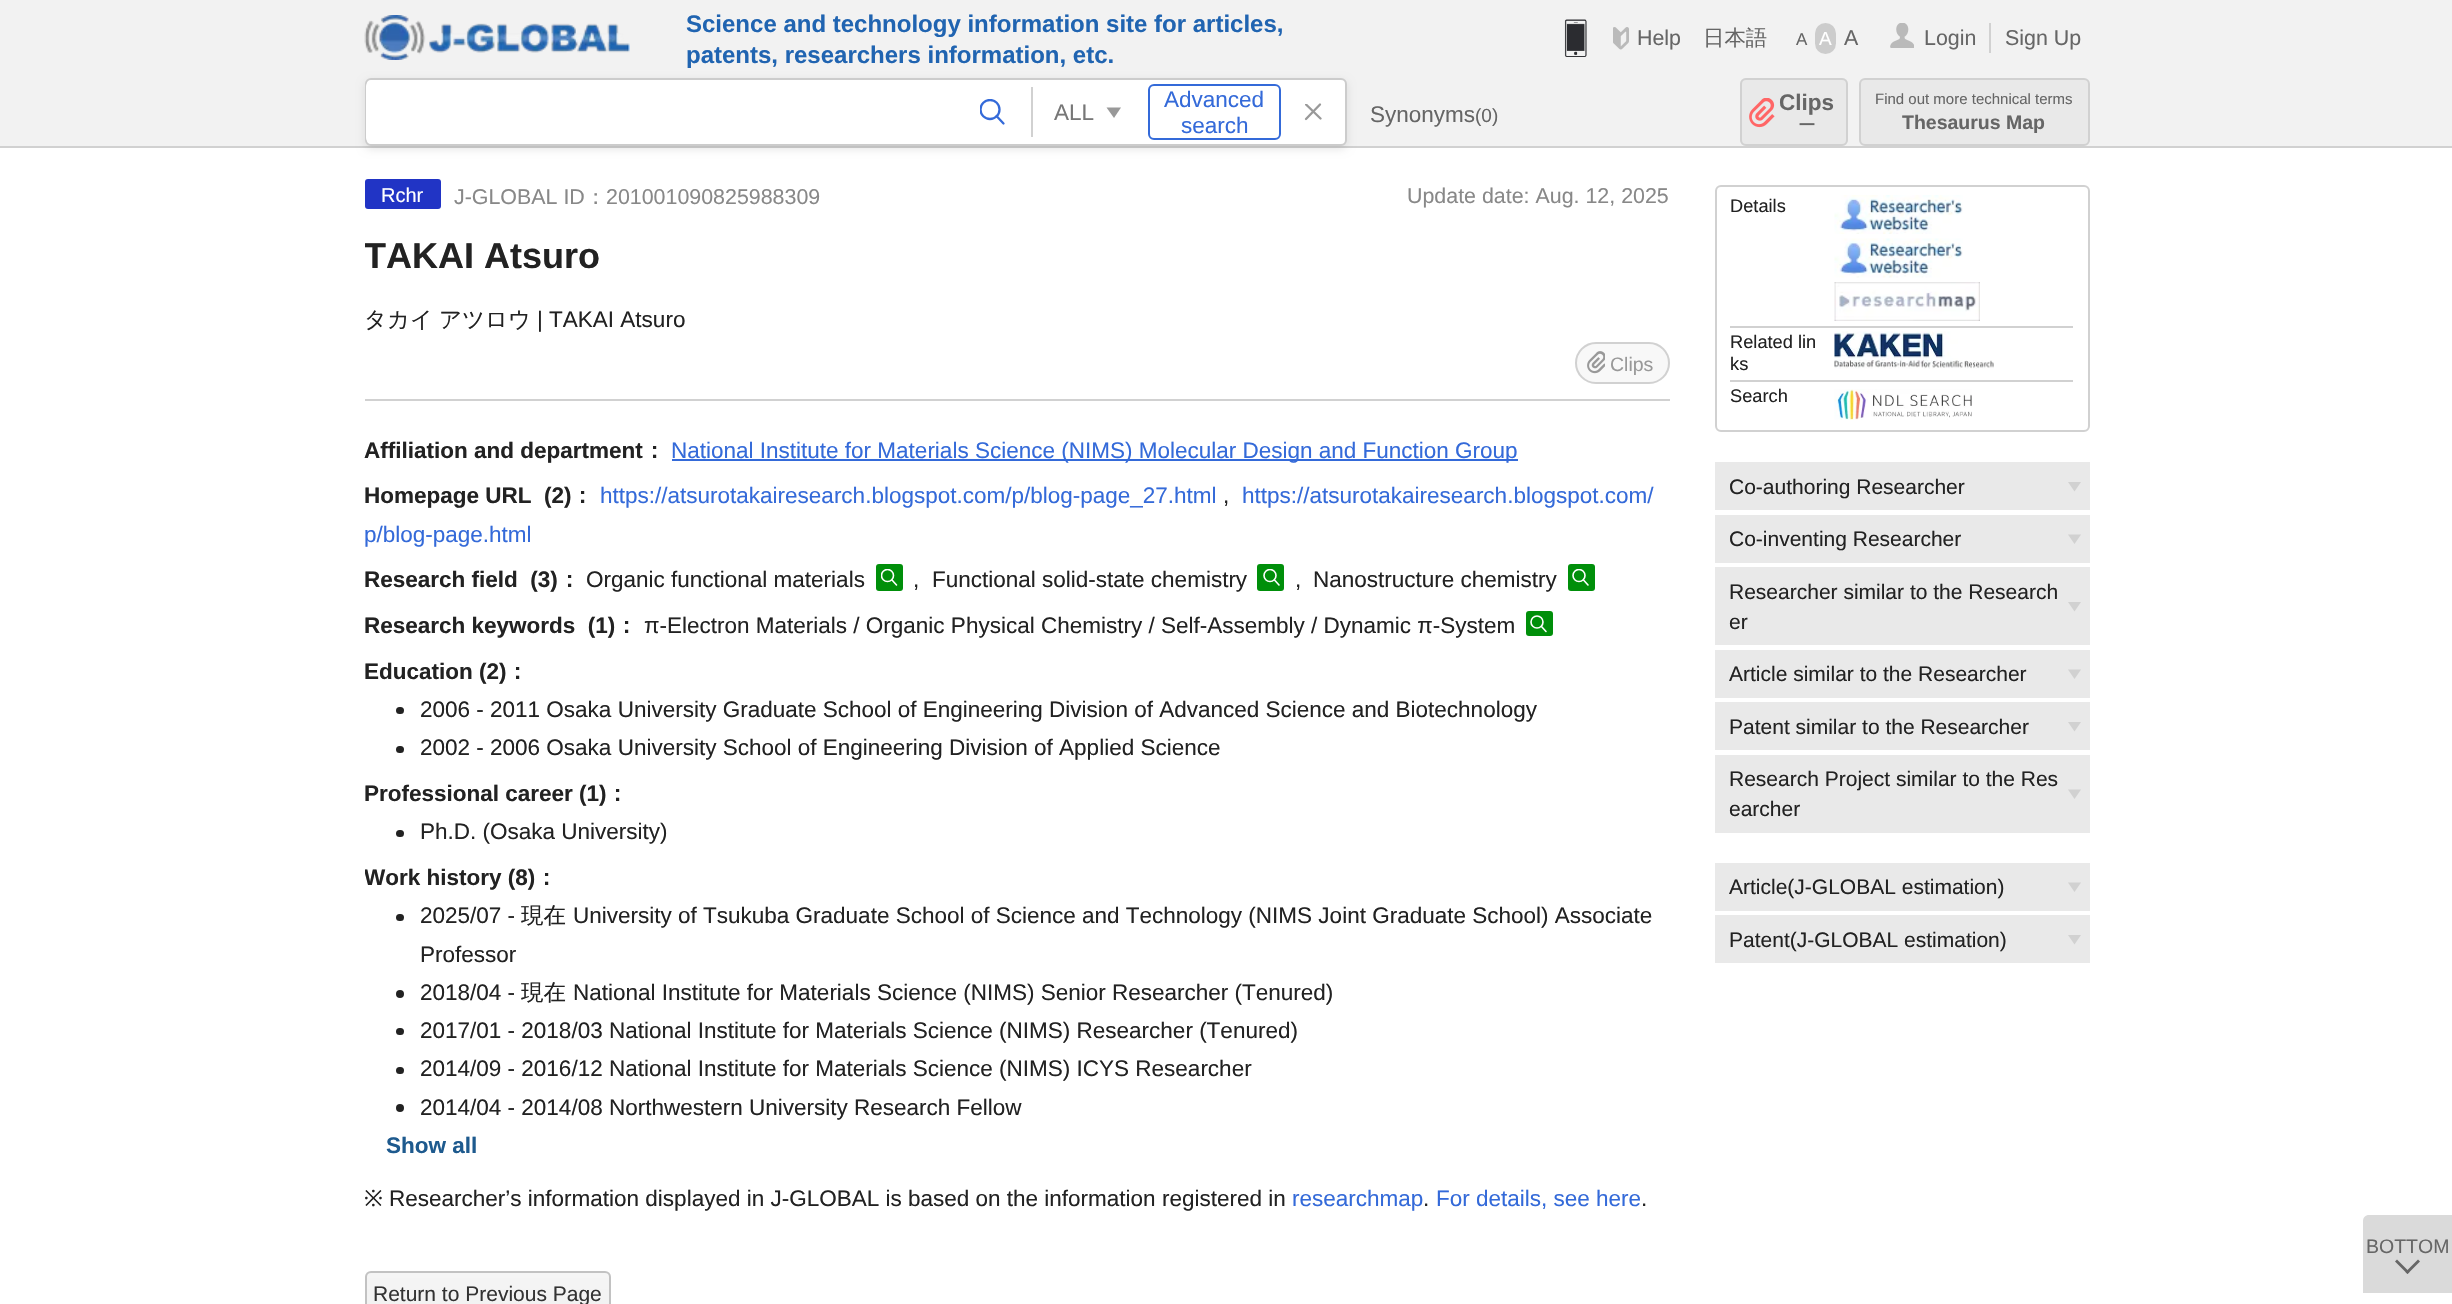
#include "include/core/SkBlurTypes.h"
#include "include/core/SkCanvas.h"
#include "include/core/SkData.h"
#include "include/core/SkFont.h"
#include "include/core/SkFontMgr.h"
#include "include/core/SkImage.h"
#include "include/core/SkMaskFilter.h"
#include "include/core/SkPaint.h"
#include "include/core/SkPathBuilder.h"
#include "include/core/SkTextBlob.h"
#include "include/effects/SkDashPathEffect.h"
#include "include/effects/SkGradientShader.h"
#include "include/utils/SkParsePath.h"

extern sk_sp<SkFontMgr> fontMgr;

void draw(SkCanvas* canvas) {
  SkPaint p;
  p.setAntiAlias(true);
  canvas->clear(SK_ColorWHITE);
  p.setColor(SkColorSetRGB(242, 242, 242));
  canvas->drawRect(SkRect::MakeLTRB(0, 0, 2452, 146), p);
  canvas->drawImageRect(SkImages::DeferredFromEncodedData(SkData::MakeFromFileName("images/1.png")), SkRect::MakeLTRB(364, 15, 630, 60), SkSamplingOptions());
  canvas->drawImageRect(SkImages::DeferredFromEncodedData(SkData::MakeFromFileName("images/2.png")), SkRect::MakeLTRB(1564, 19, 1587, 57), SkSamplingOptions());
  canvas->drawImageRect(SkImages::DeferredFromEncodedData(SkData::MakeFromFileName("images/3.png")), SkRect::MakeLTRB(1613, 27, 1629, 50), SkSamplingOptions());
  p.setColor(SkColorSetRGB(204, 204, 204));
  canvas->drawRoundRect(SkRect::MakeLTRB(1815, 23, 1836, 54), 10.5f, 10.5f, p);
  canvas->drawImageRect(SkImages::DeferredFromEncodedData(SkData::MakeFromFileName("images/4.png")), SkRect::MakeLTRB(1890, 23, 1914, 48), SkSamplingOptions());
  p.setColor(SkColorSetRGB(209, 209, 209));
  canvas->drawRect(SkRect::MakeLTRB(1989, 23, 1991, 53), p);
  canvas->drawRect(SkRect::MakeLTRB(0, 146, 2452, 148), p);
  p.setColor(SkColorSetARGB(26, 0, 0, 0));
  p.setMaskFilter(SkMaskFilter::MakeBlur(kNormal_SkBlurStyle, 4));
  canvas->drawRoundRect(SkRect::MakeLTRB(365, 81, 1347, 149), 6, 6, p);
  p.setMaskFilter(nullptr);
  p.setColor(SK_ColorWHITE);
  canvas->drawRoundRect(SkRect::MakeLTRB(366, 79, 1346, 145), 5, 5, p);
  p.setStyle(SkPaint::kStroke_Style);
  p.setStrokeWidth(2);
  p.setColor(SkColorSetRGB(204, 204, 204));
  canvas->drawRoundRect(SkRect::MakeLTRB(366, 79, 1346, 145), 5, 5, p);
  canvas->save();
  canvas->clipPath(SkPathBuilder().moveTo(371, 80).lineTo(1341, 80).cubicTo(1344, 80, 1346, 82, 1346, 85).lineTo(1346, 139).cubicTo(1346, 142, 1344, 144, 1341, 144).lineTo(371, 144).cubicTo(368, 144, 366, 142, 366, 139).lineTo(366, 85).cubicTo(366, 82, 368, 80, 371, 80).close().detach(), true);
  p.setStyle(SkPaint::kFill_Style);
  p.setColor(SK_ColorWHITE);
  canvas->drawRoundRect(SkRect::MakeLTRB(366, 80, 956, 144), 6, 6, p);
  canvas->restore();
  canvas->save();
  canvas->clipRect(SkRect::MakeLTRB(980, 99, 1005, 125));
  p.setStyle(SkPaint::kStroke_Style);
  p.setStrokeWidth(2.3f);
  p.setColor(SkColorSetRGB(52, 106, 217));
  canvas->drawCircle(990, 109.5f, 9.5f, p);
  canvas->restore();
  p.setStrokeCap(SkPaint::kRound_Cap);
  p.setStrokeJoin(SkPaint::kRound_Join);
  canvas->drawPath(SkPathBuilder().moveTo(996.5f, 116).lineTo(1003.5f, 123.5f).detach(), p);
  p.setStyle(SkPaint::kFill_Style);
  p.setColor(SkColorSetRGB(153, 153, 153));
  canvas->drawPath(SkPathBuilder().moveTo(1121, 107.5f).lineTo(1114, 118).lineTo(1106.5f, 107.5f).close().detach(), p);
  p.setColor(SkColorSetRGB(209, 209, 209));
  canvas->drawRect(SkRect::MakeLTRB(1031, 87, 1033, 137), p);
  p.setStyle(SkPaint::kStroke_Style);
  p.setStrokeWidth(2);
  p.setStrokeCap(SkPaint::kButt_Cap);
  p.setStrokeJoin(SkPaint::kMiter_Join);
  p.setColor(SkColorSetRGB(52, 106, 217));
  canvas->drawRoundRect(SkRect::MakeLTRB(1149, 85, 1280, 139), 5, 5, p);
  p.setStrokeWidth(2.3f);
  p.setStrokeCap(SkPaint::kRound_Cap);
  p.setStrokeJoin(SkPaint::kRound_Join);
  p.setColor(SkColorSetRGB(153, 153, 153));
  canvas->drawPath(SkPathBuilder().moveTo(1306, 119).lineTo(1320, 104.5f).detach(), p);
  canvas->save();
  canvas->clipRect(SkRect::MakeLTRB(1305, 104, 1322, 120));
  canvas->drawPath(SkPathBuilder().moveTo(1306, 104.5f).lineTo(1320.5f, 118.5f).detach(), p);
  canvas->restore();
  p.setStyle(SkPaint::kFill_Style);
  p.setColor(SkColorSetRGB(233, 233, 233));
  canvas->drawRoundRect(SkRect::MakeLTRB(1740, 78, 1848, 146), 6, 6, p);
  canvas->drawImageRect(SkImages::DeferredFromEncodedData(SkData::MakeFromFileName("images/5.png")), SkRect::MakeLTRB(1749, 98, 1775, 128), SkSamplingOptions());
  p.setStyle(SkPaint::kStroke_Style);
  p.setStrokeWidth(2);
  p.setStrokeCap(SkPaint::kButt_Cap);
  p.setStrokeJoin(SkPaint::kMiter_Join);
  p.setColor(SkColorSetRGB(209, 209, 209));
  canvas->drawRoundRect(SkRect::MakeLTRB(1741, 79, 1847, 145), 5, 5, p);
  p.setStyle(SkPaint::kFill_Style);
  p.setColor(SkColorSetRGB(233, 233, 233));
  canvas->drawRoundRect(SkRect::MakeLTRB(1860, 79, 2089, 145), 5, 5, p);
  p.setStyle(SkPaint::kStroke_Style);
  p.setColor(SkColorSetRGB(209, 209, 209));
  canvas->drawRoundRect(SkRect::MakeLTRB(1860, 79, 2089, 145), 5, 5, p);
  p.setStyle(SkPaint::kFill_Style);
  canvas->drawRect(SkRect::MakeLTRB(365, 399, 1670, 401), p);
  p.setColor(SkColorSetRGB(33, 52, 197));
  canvas->drawRoundRect(SkRect::MakeLTRB(365, 179, 441, 209), 3, 3, p);
  p.setColor(SkColorSetRGB(248, 248, 248));
  canvas->drawRoundRect(SkRect::MakeLTRB(1575, 342, 1670, 384), 21, 21, p);
  canvas->drawImageRect(SkImages::DeferredFromEncodedData(SkData::MakeFromFileName("images/6.png")), SkRect::MakeLTRB(1587, 351, 1605, 374), SkSamplingOptions());
  p.setStyle(SkPaint::kStroke_Style);
  p.setColor(SkColorSetRGB(209, 209, 209));
  canvas->drawRoundRect(SkRect::MakeLTRB(1576, 343, 1669, 383), 20, 20, p);
  p.setStyle(SkPaint::kFill_Style);
  p.setColor(SkColorSetRGB(52, 106, 217));
  canvas->drawRect(SkRect::MakeLTRB(672, 459, 1518, 461), p);
  p.setColor(SkColorSetRGB(0, 143, 10));
  canvas->drawRoundRect(SkRect::MakeLTRB(876, 564, 903, 591), 3, 3, p);
  canvas->save();
  canvas->clipRect(SkRect::MakeLTRB(881, 569, 897, 587));
  p.setStyle(SkPaint::kStroke_Style);
  p.setStrokeWidth(1.6f);
  p.setColor(SK_ColorWHITE);
  canvas->drawCircle(887.5f, 575.5f, 6, p);
  canvas->restore();
  p.setStrokeCap(SkPaint::kRound_Cap);
  p.setStrokeJoin(SkPaint::kRound_Join);
  canvas->drawPath(SkPathBuilder().moveTo(892, 580).lineTo(896.5f, 585).detach(), p);
  p.setStyle(SkPaint::kFill_Style);
  p.setColor(SkColorSetRGB(0, 143, 10));
  canvas->drawRoundRect(SkRect::MakeLTRB(1257, 564, 1284, 591), 3, 3, p);
  canvas->save();
  canvas->clipRect(SkRect::MakeLTRB(1263, 569, 1280, 587));
  p.setStyle(SkPaint::kStroke_Style);
  p.setStrokeCap(SkPaint::kButt_Cap);
  p.setStrokeJoin(SkPaint::kMiter_Join);
  p.setColor(SK_ColorWHITE);
  canvas->drawCircle(1270, 575.5f, 6, p);
  canvas->restore();
  p.setStrokeCap(SkPaint::kRound_Cap);
  p.setStrokeJoin(SkPaint::kRound_Join);
  canvas->drawPath(SkPathBuilder().moveTo(1274.5f, 580).lineTo(1279, 585).detach(), p);
  p.setStyle(SkPaint::kFill_Style);
  p.setColor(SkColorSetRGB(0, 143, 10));
  canvas->drawRoundRect(SkRect::MakeLTRB(1568, 564, 1595, 591), 3, 3, p);
  canvas->save();
  canvas->clipRect(SkRect::MakeLTRB(1572, 569, 1590, 587));
  p.setStyle(SkPaint::kStroke_Style);
  p.setStrokeCap(SkPaint::kButt_Cap);
  p.setStrokeJoin(SkPaint::kMiter_Join);
  p.setColor(SK_ColorWHITE);
  canvas->drawCircle(1579, 575.5f, 6, p);
  canvas->restore();
  p.setStrokeCap(SkPaint::kRound_Cap);
  p.setStrokeJoin(SkPaint::kRound_Join);
  canvas->drawPath(SkPathBuilder().moveTo(1583.5f, 580).lineTo(1588, 585).detach(), p);
  p.setStyle(SkPaint::kFill_Style);
  p.setColor(SkColorSetRGB(0, 143, 10));
  canvas->drawRoundRect(SkRect::MakeLTRB(1526, 611, 1553, 636), 3, 3, p);
  p.setStyle(SkPaint::kStroke_Style);
  p.setStrokeCap(SkPaint::kButt_Cap);
  p.setStrokeJoin(SkPaint::kMiter_Join);
  p.setColor(SK_ColorWHITE);
  canvas->drawCircle(1537, 622, 6, p);
  p.setStrokeCap(SkPaint::kRound_Cap);
  p.setStrokeJoin(SkPaint::kRound_Join);
  canvas->drawPath(SkPathBuilder().moveTo(1541.5f, 626.5f).lineTo(1546, 631.5f).detach(), p);
  p.setStyle(SkPaint::kFill_Style);
  p.setColor(SkColorSetRGB(34, 34, 34));
  canvas->drawRoundRect(SkRect::MakeLTRB(396, 707, 404, 714), 3.5f, 3.5f, p);
  canvas->drawRoundRect(SkRect::MakeLTRB(396, 746, 404, 753), 3.5f, 3.5f, p);
  canvas->drawRoundRect(SkRect::MakeLTRB(396, 830, 404, 837), 3.5f, 3.5f, p);
  canvas->drawRoundRect(SkRect::MakeLTRB(396, 914, 404, 921), 3.5f, 3.5f, p);
  canvas->drawCircle(400, 994, 4, p);
  canvas->drawRoundRect(SkRect::MakeLTRB(396, 1028, 404, 1035), 3.5f, 3.5f, p);
  canvas->drawRoundRect(SkRect::MakeLTRB(396, 1067, 404, 1074), 3.5f, 3.5f, p);
  canvas->drawCircle(400, 1108, 4, p);
  canvas->save();
  canvas->clipPath(SkPathBuilder().moveTo(371, 1271).lineTo(605, 1271).cubicTo(608.5f, 1271, 611, 1273.5f, 611, 1277).lineTo(611, 1313).cubicTo(611, 1316.5f, 608.5f, 1319, 605, 1319).lineTo(371, 1319).cubicTo(367.5f, 1319, 365, 1316.5f, 365, 1313).lineTo(365, 1277).cubicTo(365, 1273.5f, 367.5f, 1271, 371, 1271).close().detach(), true);
  {
    const SkColor colors[] = {SkColorSetRGB(245, 245, 245), SkColorSetRGB(241, 241, 241)};
    const float stops[] = {0, 1};
    const SkPoint ends[] = {{488, 1272}, {488, 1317}};
    p.setShader(SkGradientShader::MakeLinear(ends, colors, stops, 2, SkTileMode::kClamp));
    p.setAlpha(255);
  }
  canvas->drawRect(SkRect::MakeLTRB(365, 1272, 611, 1304), p);
  canvas->restore();
  p.setStyle(SkPaint::kStroke_Style);
  p.setStrokeWidth(2);
  p.setStrokeCap(SkPaint::kButt_Cap);
  p.setStrokeJoin(SkPaint::kMiter_Join);
  p.setShader(nullptr);
  p.setColor(SkColorSetRGB(194, 194, 194));
  canvas->drawRoundRect(SkRect::MakeLTRB(366, 1272, 610, 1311), 5, 5, p);
  p.setColor(SkColorSetRGB(209, 209, 209));
  canvas->drawRoundRect(SkRect::MakeLTRB(1716, 186, 2089, 431), 5, 5, p);
  p.setStyle(SkPaint::kFill_Style);
  canvas->drawRect(SkRect::MakeLTRB(1730, 326, 2073, 328), p);
  canvas->drawImageRect(SkImages::DeferredFromEncodedData(SkData::MakeFromFileName("images/7.png")), SkRect::MakeLTRB(1834, 195, 1963, 234), SkSamplingOptions());
  canvas->drawImageRect(SkImages::DeferredFromEncodedData(SkData::MakeFromFileName("images/8.png")), SkRect::MakeLTRB(1834, 238, 1963, 278), SkSamplingOptions());
  canvas->drawImageRect(SkImages::DeferredFromEncodedData(SkData::MakeFromFileName("images/9.png")), SkRect::MakeLTRB(1834, 282, 1980, 321), SkSamplingOptions());
  canvas->drawRect(SkRect::MakeLTRB(1730, 380, 2073, 382), p);
  canvas->drawImageRect(SkImages::DeferredFromEncodedData(SkData::MakeFromFileName("images/10.png")), SkRect::MakeLTRB(1834, 331, 1994, 369), SkSamplingOptions());
  canvas->drawImageRect(SkImages::DeferredFromEncodedData(SkData::MakeFromFileName("images/11.png")), SkRect::MakeLTRB(1834, 389, 1972, 420), SkSamplingOptions());
  p.setColor(SkColorSetRGB(233, 233, 233));
  canvas->drawRect(SkRect::MakeLTRB(1715, 462, 2090, 510), p);
  p.setColor(SkColorSetRGB(209, 209, 209));
  canvas->drawPath(SkPathBuilder().moveTo(2081, 482).lineTo(2074.5f, 491.5f).lineTo(2068, 482).close().detach(), p);
  p.setColor(SkColorSetRGB(233, 233, 233));
  canvas->drawRect(SkRect::MakeLTRB(1715, 515, 2090, 563), p);
  p.setColor(SkColorSetRGB(209, 209, 209));
  canvas->drawPath(SkPathBuilder().moveTo(2081, 534.5f).lineTo(2074.5f, 544).lineTo(2068, 534.5f).close().detach(), p);
  p.setColor(SkColorSetRGB(233, 233, 233));
  canvas->drawRect(SkRect::MakeLTRB(1715, 567, 2090, 645), p);
  p.setColor(SkColorSetRGB(209, 209, 209));
  canvas->drawPath(SkPathBuilder().moveTo(2081, 602).lineTo(2074.5f, 611.5f).lineTo(2068, 602).close().detach(), p);
  p.setColor(SkColorSetRGB(233, 233, 233));
  canvas->drawRect(SkRect::MakeLTRB(1715, 650, 2090, 698), p);
  p.setColor(SkColorSetRGB(209, 209, 209));
  canvas->drawPath(SkPathBuilder().moveTo(2081, 669.5f).lineTo(2074.5f, 679).lineTo(2068, 669.5f).close().detach(), p);
  p.setColor(SkColorSetRGB(233, 233, 233));
  canvas->drawRect(SkRect::MakeLTRB(1715, 702, 2090, 750), p);
  p.setColor(SkColorSetRGB(209, 209, 209));
  canvas->drawPath(SkPathBuilder().moveTo(2081, 722).lineTo(2074.5f, 731.5f).lineTo(2068, 722).close().detach(), p);
  p.setColor(SkColorSetRGB(233, 233, 233));
  canvas->drawRect(SkRect::MakeLTRB(1715, 755, 2090, 833), p);
  p.setColor(SkColorSetRGB(209, 209, 209));
  canvas->drawPath(SkPathBuilder().moveTo(2081, 789.5f).lineTo(2074.5f, 799).lineTo(2068, 789.5f).close().detach(), p);
  p.setColor(SkColorSetRGB(233, 233, 233));
  canvas->drawRect(SkRect::MakeLTRB(1715, 863, 2090, 911), p);
  p.setColor(SkColorSetRGB(209, 209, 209));
  canvas->drawPath(SkPathBuilder().moveTo(2081, 882.5f).lineTo(2074.5f, 892).lineTo(2068, 882.5f).close().detach(), p);
  p.setColor(SkColorSetRGB(233, 233, 233));
  canvas->drawRect(SkRect::MakeLTRB(1715, 915, 2090, 963), p);
  p.setColor(SkColorSetRGB(209, 209, 209));
  canvas->drawPath(SkPathBuilder().moveTo(2081, 935).lineTo(2074.5f, 944.5f).lineTo(2068, 935).close().detach(), p);
  p.setColor(SkColorSetRGB(218, 218, 218));
  canvas->drawPath(SkPathBuilder().moveTo(2369, 1215).lineTo(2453, 1215).lineTo(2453, 1293).lineTo(2363, 1293).lineTo(2363, 1221).cubicTo(2363, 1217.5f, 2365.5f, 1215, 2369, 1215).close().detach(), p);
  p.setColor(SkColorSetRGB(102, 102, 102));
  canvas->drawPath(SkPathBuilder().moveTo(2405.5f, 1272).lineTo(2418, 1259.5f).lineTo(2420, 1261.5f).lineTo(2407.5f, 1274).close().detach(), p);
  canvas->drawPath(SkPathBuilder().moveTo(2395, 1261.5f).lineTo(2397, 1259.5f).lineTo(2409.5f, 1272).lineTo(2407.5f, 1274).close().detach(), p);
  SkFont font1(fontMgr->matchFamilyStyle("Liberation Sans", SkFontStyle::Bold()), 24);
  font1.setSubpixel(true);
  p.setColor(SkColorSetRGB(32, 100, 177));
  canvas->drawString("Science and technology information site for articles,", 686, 32, font1, p);
  canvas->drawString("patents, researchers information, etc.", 686, 63, font1, p);
  SkFont font2(fontMgr->matchFamilyStyle("Liberation Sans", SkFontStyle::Normal()), 21.4f);
  font2.setSubpixel(true);
  p.setColor(SkColorSetRGB(102, 102, 102));
  canvas->drawString("Help", 1637, 45, font2, p);
  SkFont font3(fontMgr->matchFamilyStyle("WenQuanYi Zen Hei", SkFontStyle(500, SkFontStyle::kNormal_Width, SkFontStyle::kUpright_Slant)), 21.4f);
  font3.setSubpixel(true);
  canvas->drawString("日本語", 1703, 45, font3, p);
  SkFont font4(fontMgr->matchFamilyStyle("Liberation Sans", SkFontStyle::Normal()), 17);
  font4.setSubpixel(true);
  canvas->drawString("A", 1796, 45, font4, p);
  SkFont font5(fontMgr->matchFamilyStyle("Liberation Sans", SkFontStyle::Normal()), 19);
  font5.setSubpixel(true);
  p.setColor(SK_ColorWHITE);
  canvas->drawString("A", 1819, 45, font5, p);
  p.setColor(SkColorSetRGB(102, 102, 102));
  canvas->drawString("A", 1844, 45, font2, p);
  canvas->drawString("Login", 1924, 45, font2, p);
  canvas->drawString("Sign Up", 2005, 45, font2, p);
  SkFont font6(fontMgr->matchFamilyStyle("Liberation Sans", SkFontStyle::Normal()), 22.5f);
  font6.setSubpixel(true);
  p.setColor(SkColorSetRGB(119, 119, 119));
  canvas->drawString("ALL", 1054, 120, font6, p);
  p.setColor(SkColorSetRGB(52, 106, 217));
  canvas->drawString("Advanced", 1164, 107, font6, p);
  canvas->drawString("search", 1181, 133, font6, p);
  p.setColor(SkColorSetRGB(102, 102, 102));
  canvas->drawString("Synonyms", 1370, 122, font6, p);
  canvas->drawString("(0)", 1475, 122, font5, p);
  SkFont font7(fontMgr->matchFamilyStyle("Liberation Sans", SkFontStyle::Bold()), 22.5f);
  font7.setSubpixel(true);
  canvas->drawString("Clips", 1779, 110, font7, p);
  SkFont font8(fontMgr->matchFamilyStyle("WenQuanYi Zen Hei", SkFontStyle(500, SkFontStyle::kNormal_Width, SkFontStyle::kUpright_Slant)), 18);
  font8.setSubpixel(true);
  canvas->drawString("ー", 1798, 131, font8, p);
  SkFont font9(fontMgr->matchFamilyStyle("Liberation Sans", SkFontStyle::Normal()), 15);
  font9.setSubpixel(true);
  canvas->drawString("Find out more technical terms", 1875, 104, font9, p);
  SkFont font10(fontMgr->matchFamilyStyle("Liberation Sans", SkFontStyle::Bold()), 19.5f);
  font10.setSubpixel(true);
  canvas->drawString("Thesaurus Map", 1902, 129, font10, p);
  SkFont font11(fontMgr->matchFamilyStyle("Liberation Sans", SkFontStyle::Normal()), 20);
  font11.setSubpixel(true);
  p.setColor(SK_ColorWHITE);
  canvas->drawString("Rchr", 381, 202, font11, p);
  p.setColor(SkColorSetRGB(136, 136, 136));
  canvas->drawString("J-GLOBAL ID", 454, 204, font2, p);
  canvas->drawString("：", 585, 204, font3, p);
  canvas->drawString("201001090825988309", 606, 204, font2, p);
  canvas->drawString("Update date: Aug. 12, 2025", 1407, 203, font2, p);
  canvas->save();
  canvas->clipRect(SkRect::MakeLTRB(365, 177, 1670, 399));
  SkFont font12(fontMgr->matchFamilyStyle("Liberation Sans", SkFontStyle::Bold()), 36);
  font12.setSubpixel(true);
  p.setColor(SkColorSetRGB(34, 34, 34));
  canvas->drawString("TAKAI Atsuro", 364, 268, font12, p);
  canvas->restore();
  SkFont font13(fontMgr->matchFamilyStyle("WenQuanYi Zen Hei", SkFontStyle(500, SkFontStyle::kNormal_Width, SkFontStyle::kUpright_Slant)), 22.5f);
  font13.setSubpixel(true);
  canvas->drawString("タカイ", 364, 327, font13, p);
  canvas->drawString("アツロウ", 439, 327, font13, p);
  canvas->drawString("| TAKAI Atsuro", 537, 327, font6, p);
  SkFont font14(fontMgr->matchFamilyStyle("Liberation Sans", SkFontStyle::Normal()), 19.5f);
  font14.setSubpixel(true);
  p.setColor(SkColorSetRGB(153, 153, 153));
  canvas->drawString("Clips", 1610, 371, font14, p);
  p.setColor(SkColorSetRGB(34, 34, 34));
  canvas->drawString("Affiliation and department", 364, 458, font7, p);
  SkFont font15(fontMgr->matchFamilyStyle("WenQuanYi Zen Hei", SkFontStyle::Bold()), 22.5f);
  font15.setSubpixel(true);
  canvas->drawString("：", 643, 458, font15, p);
  p.setColor(SkColorSetRGB(52, 106, 217));
  canvas->drawString("National Institute for Materials Science (NIMS) Molecular Design and Function Group", 671, 458, font6, p);
  p.setColor(SkColorSetRGB(34, 34, 34));
  canvas->drawString("Homepage URL  (2)", 364, 503, font7, p);
  canvas->drawString("：", 571, 503, font15, p);
  p.setColor(SkColorSetRGB(52, 106, 217));
  canvas->drawString("https://atsurotakairesearch.blogspot.com/p/blog-page_27.html", 600, 503, font6, p);
  p.setColor(SkColorSetRGB(34, 34, 34));
  canvas->drawString(",", 1223, 503, font6, p);
  p.setColor(SkColorSetRGB(52, 106, 217));
  canvas->drawString("https://atsurotakairesearch.blogspot.com/", 1242, 503, font6, p);
  canvas->drawString("p/blog-page.html", 364, 542, font6, p);
  p.setColor(SkColorSetRGB(34, 34, 34));
  canvas->drawString("Research field  (3)", 364, 587, font7, p);
  canvas->drawString("：", 558, 587, font15, p);
  canvas->drawString("Organic functional materials", 586, 587, font6, p);
  canvas->drawString(",", 913, 587, font6, p);
  canvas->drawString("Functional solid-state chemistry", 932, 587, font6, p);
  canvas->drawString(",", 1295, 587, font6, p);
  canvas->drawString("Nanostructure chemistry", 1313, 587, font6, p);
  canvas->drawString("Research keywords  (1)", 364, 633, font7, p);
  canvas->drawString("：", 615, 633, font15, p);
  canvas->drawString("π-Electron Materials / Organic Physical Chemistry / Self-Assembly / Dynamic π-System", 644, 633, font6, p);
  canvas->drawString("Education (2)", 364, 679, font7, p);
  canvas->drawString("：", 506, 679, font15, p);
  canvas->drawString("2006 - 2011 Osaka University Graduate School of Engineering Division of Advanced Science and Biotechnology", 420, 717, font6, p);
  canvas->drawString("2002 - 2006 Osaka University School of Engineering Division of Applied Science", 420, 755, font6, p);
  canvas->drawString("Professional career (1)", 364, 801, font7, p);
  canvas->drawString("：", 606, 801, font15, p);
  canvas->drawString("Ph.D. (Osaka University)", 420, 839, font6, p);
  canvas->save();
  canvas->clipRect(SkRect::MakeLTRB(365, 147, 1670, 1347));
  canvas->drawString("Work history (8)", 364, 885, font7, p);
  canvas->restore();
  canvas->drawString("：", 535, 885, font15, p);
  canvas->drawString("2025/07 -", 420, 923, font6, p);
  canvas->drawString("現在", 521, 923, font13, p);
  canvas->drawString("University of Tsukuba Graduate School of Science and Technology (NIMS Joint Graduate School) Associate", 573, 923, font6, p);
  canvas->drawString("Professor", 420, 962, font6, p);
  canvas->drawString("2018/04 -", 420, 1000, font6, p);
  canvas->drawString("現在", 521, 1000, font13, p);
  canvas->drawString("National Institute for Materials Science (NIMS) Senior Researcher (Tenured)", 573, 1000, font6, p);
  canvas->drawString("2017/01 - 2018/03 National Institute for Materials Science (NIMS) Researcher (Tenured)", 420, 1038, font6, p);
  canvas->drawString("2014/09 - 2016/12 National Institute for Materials Science (NIMS) ICYS Researcher", 420, 1076, font6, p);
  canvas->drawString("2014/04 - 2014/08 Northwestern University Research Fellow", 420, 1115, font6, p);
  p.setColor(SkColorSetRGB(30, 90, 142));
  canvas->drawString("Show all", 386, 1153, font7, p);
  SkFont font16(fontMgr->matchFamilyStyle("Noto Sans", SkFontStyle::Normal()), 22.5f);
  font16.setSubpixel(true);
  p.setColor(SkColorSetRGB(34, 34, 34));
  canvas->drawString("※", 364, 1206, font16, p);
  canvas->drawString("Researcher’s information displayed in J-GLOBAL is based on the information registered in", 389, 1206, font6, p);
  p.setColor(SkColorSetRGB(52, 106, 217));
  canvas->drawString("researchmap", 1292, 1206, font6, p);
  p.setColor(SkColorSetRGB(34, 34, 34));
  canvas->drawString(".", 1423, 1206, font6, p);
  p.setColor(SkColorSetRGB(52, 106, 217));
  canvas->drawString("For details, see here", 1436, 1206, font6, p);
  p.setColor(SkColorSetRGB(34, 34, 34));
  canvas->drawString(".", 1641, 1206, font6, p);
  SkFont font17(fontMgr->matchFamilyStyle("Liberation Sans", SkFontStyle::Normal()), 21);
  font17.setSubpixel(true);
  p.setColor(SkColorSetRGB(51, 51, 51));
  canvas->drawString("Return to Previous Page", 373, 1301, font17, p);
  SkFont font18(fontMgr->matchFamilyStyle("Liberation Sans", SkFontStyle::Normal()), 18.25f);
  font18.setSubpixel(true);
  p.setColor(SkColorSetRGB(34, 34, 34));
  canvas->drawString("Details", 1730, 212, font18, p);
  canvas->drawString("Related lin", 1730, 348, font18, p);
  canvas->drawString("ks", 1730, 370, font18, p);
  canvas->drawString("Search", 1730, 402, font18, p);
  canvas->drawString("Co-authoring Researcher", 1729, 494, font17, p);
  canvas->drawString("Co-inventing Researcher", 1729, 546, font17, p);
  canvas->drawString("Researcher similar to the Research", 1729, 599, font17, p);
  canvas->drawString("er", 1729, 629, font17, p);
  canvas->drawString("Article similar to the Researcher", 1729, 681, font17, p);
  canvas->drawString("Patent similar to the Researcher", 1729, 734, font17, p);
  canvas->drawString("Research Project similar to the Res", 1729, 786, font17, p);
  canvas->drawString("earcher", 1729, 816, font17, p);
  canvas->drawString("Article(J-GLOBAL estimation)", 1729, 894, font17, p);
  canvas->drawString("Patent(J-GLOBAL estimation)", 1729, 947, font17, p);
  p.setColor(SkColorSetRGB(102, 102, 102));
  canvas->drawString("BOTTOM", 2366, 1253, font14, p);
}
